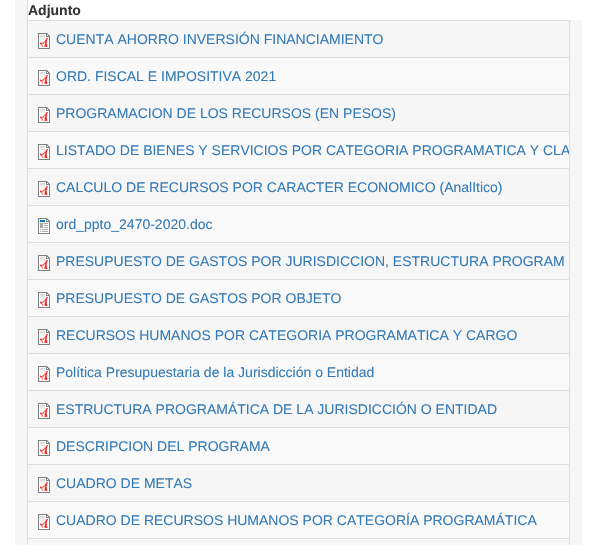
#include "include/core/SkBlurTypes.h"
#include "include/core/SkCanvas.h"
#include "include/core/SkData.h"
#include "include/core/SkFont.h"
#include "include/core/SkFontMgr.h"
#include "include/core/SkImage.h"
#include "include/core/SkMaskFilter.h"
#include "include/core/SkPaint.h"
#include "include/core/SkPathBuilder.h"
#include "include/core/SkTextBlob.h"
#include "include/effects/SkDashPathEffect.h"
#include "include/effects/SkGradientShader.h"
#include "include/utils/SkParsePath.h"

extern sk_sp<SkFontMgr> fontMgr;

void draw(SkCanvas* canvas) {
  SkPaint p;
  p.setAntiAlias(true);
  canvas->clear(SK_ColorWHITE);
  p.setColor(SkColorSetRGB(246, 246, 246));
  canvas->drawRect(SkRect::MakeLTRB(15, 0, 582, 545), p);
  p.setStyle(SkPaint::kStroke_Style);
  p.setStrokeWidth(1);
  p.setColor(SkColorSetRGB(221, 221, 221));
  canvas->drawRect(SkRect::MakeLTRB(27.5f, -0.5f, 569.5f, 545.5f), p);
  p.setStyle(SkPaint::kFill_Style);
  p.setColor(SK_ColorWHITE);
  canvas->drawRect(SkRect::MakeLTRB(28, 0, 582, 20), p);
  p.setColor(SkColorSetRGB(221, 221, 221));
  canvas->drawRect(SkRect::MakeLTRB(28, 20, 569, 21), p);
  canvas->drawImageRect(SkImages::DeferredFromEncodedData(SkData::MakeFromFileName("images/1.png")), SkRect::MakeLTRB(38, 33, 50, 49), SkSamplingOptions());
  p.setColor(SkColorSetRGB(249, 249, 249));
  canvas->drawRect(SkRect::MakeLTRB(28, 58, 569, 94), p);
  p.setColor(SkColorSetRGB(221, 221, 221));
  canvas->drawRect(SkRect::MakeLTRB(28, 57, 569, 58), p);
  canvas->drawImageRect(SkImages::DeferredFromEncodedData(SkData::MakeFromFileName("images/2.png")), SkRect::MakeLTRB(38, 70, 50, 86), SkSamplingOptions());
  canvas->drawRect(SkRect::MakeLTRB(28, 94, 569, 95), p);
  canvas->drawImageRect(SkImages::DeferredFromEncodedData(SkData::MakeFromFileName("images/1.png")), SkRect::MakeLTRB(38, 107, 50, 123), SkSamplingOptions());
  p.setColor(SkColorSetRGB(249, 249, 249));
  canvas->drawRect(SkRect::MakeLTRB(28, 132, 569, 168), p);
  p.setColor(SkColorSetRGB(221, 221, 221));
  canvas->drawRect(SkRect::MakeLTRB(28, 131, 569, 132), p);
  canvas->drawImageRect(SkImages::DeferredFromEncodedData(SkData::MakeFromFileName("images/2.png")), SkRect::MakeLTRB(38, 144, 50, 160), SkSamplingOptions());
  canvas->drawRect(SkRect::MakeLTRB(28, 168, 569, 169), p);
  canvas->drawImageRect(SkImages::DeferredFromEncodedData(SkData::MakeFromFileName("images/1.png")), SkRect::MakeLTRB(38, 181, 50, 197), SkSamplingOptions());
  p.setColor(SkColorSetRGB(249, 249, 249));
  canvas->drawRect(SkRect::MakeLTRB(28, 206, 569, 242), p);
  p.setColor(SkColorSetRGB(221, 221, 221));
  canvas->drawRect(SkRect::MakeLTRB(28, 205, 569, 206), p);
  canvas->drawImageRect(SkImages::DeferredFromEncodedData(SkData::MakeFromFileName("images/3.png")), SkRect::MakeLTRB(38, 218, 50, 234), SkSamplingOptions());
  canvas->drawRect(SkRect::MakeLTRB(28, 242, 569, 243), p);
  canvas->drawImageRect(SkImages::DeferredFromEncodedData(SkData::MakeFromFileName("images/1.png")), SkRect::MakeLTRB(38, 255, 50, 271), SkSamplingOptions());
  p.setColor(SkColorSetRGB(249, 249, 249));
  canvas->drawRect(SkRect::MakeLTRB(28, 280, 569, 316), p);
  p.setColor(SkColorSetRGB(221, 221, 221));
  canvas->drawRect(SkRect::MakeLTRB(28, 279, 569, 280), p);
  canvas->drawImageRect(SkImages::DeferredFromEncodedData(SkData::MakeFromFileName("images/2.png")), SkRect::MakeLTRB(38, 292, 50, 308), SkSamplingOptions());
  canvas->drawRect(SkRect::MakeLTRB(28, 316, 569, 317), p);
  canvas->drawImageRect(SkImages::DeferredFromEncodedData(SkData::MakeFromFileName("images/1.png")), SkRect::MakeLTRB(38, 329, 50, 345), SkSamplingOptions());
  p.setColor(SkColorSetRGB(249, 249, 249));
  canvas->drawRect(SkRect::MakeLTRB(28, 354, 569, 390), p);
  p.setColor(SkColorSetRGB(221, 221, 221));
  canvas->drawRect(SkRect::MakeLTRB(28, 353, 569, 354), p);
  canvas->drawImageRect(SkImages::DeferredFromEncodedData(SkData::MakeFromFileName("images/2.png")), SkRect::MakeLTRB(38, 366, 50, 382), SkSamplingOptions());
  canvas->drawRect(SkRect::MakeLTRB(28, 390, 569, 391), p);
  canvas->drawImageRect(SkImages::DeferredFromEncodedData(SkData::MakeFromFileName("images/1.png")), SkRect::MakeLTRB(38, 403, 50, 419), SkSamplingOptions());
  p.setColor(SkColorSetRGB(249, 249, 249));
  canvas->drawRect(SkRect::MakeLTRB(28, 428, 569, 464), p);
  p.setColor(SkColorSetRGB(221, 221, 221));
  canvas->drawRect(SkRect::MakeLTRB(28, 427, 569, 428), p);
  canvas->drawImageRect(SkImages::DeferredFromEncodedData(SkData::MakeFromFileName("images/2.png")), SkRect::MakeLTRB(38, 440, 50, 456), SkSamplingOptions());
  canvas->drawRect(SkRect::MakeLTRB(28, 464, 569, 465), p);
  canvas->drawImageRect(SkImages::DeferredFromEncodedData(SkData::MakeFromFileName("images/1.png")), SkRect::MakeLTRB(38, 477, 50, 493), SkSamplingOptions());
  p.setColor(SkColorSetRGB(249, 249, 249));
  canvas->drawRect(SkRect::MakeLTRB(28, 502, 569, 538), p);
  p.setColor(SkColorSetRGB(221, 221, 221));
  canvas->drawRect(SkRect::MakeLTRB(28, 501, 569, 502), p);
  canvas->drawImageRect(SkImages::DeferredFromEncodedData(SkData::MakeFromFileName("images/2.png")), SkRect::MakeLTRB(38, 514, 50, 530), SkSamplingOptions());
  canvas->drawRect(SkRect::MakeLTRB(28, 538, 569, 539), p);
  SkFont font1(fontMgr->matchFamilyStyle("Liberation Sans", SkFontStyle::Bold()), 14);
  font1.setSubpixel(true);
  p.setColor(SkColorSetRGB(51, 51, 51));
  canvas->drawString("Adjunto", 28, 15, font1, p);
  SkFont font2(fontMgr->matchFamilyStyle("Liberation Sans", SkFontStyle::Normal()), 14);
  font2.setSubpixel(true);
  p.setColor(SkColorSetRGB(51, 122, 183));
  canvas->drawString("CUENTA AHORRO INVERSIÓN FINANCIAMIENTO", 56, 44, font2, p);
  canvas->drawString("ORD. FISCAL E IMPOSITIVA 2021", 56, 81, font2, p);
  canvas->drawString("PROGRAMACION DE LOS RECURSOS (EN PESOS)", 56, 118, font2, p);
  canvas->save();
  canvas->clipRect(SkRect::MakeLTRB(28, 0, 569, 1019));
  canvas->drawString("LISTADO DE BIENES Y SERVICIOS POR CATEGORIA PROGRAMATICA Y CLA", 56, 155, font2, p);
  canvas->restore();
  canvas->drawString("CALCULO DE RECURSOS POR CARACTER ECONOMICO (AnalItico)", 56, 192, font2, p);
  canvas->drawString("ord_ppto_2470-2020.doc", 56, 229, font2, p);
  canvas->drawString("PRESUPUESTO DE GASTOS POR JURISDICCION, ESTRUCTURA PROGRAM", 56, 266, font2, p);
  canvas->drawString("PRESUPUESTO DE GASTOS POR OBJETO", 56, 303, font2, p);
  canvas->drawString("RECURSOS HUMANOS POR CATEGORIA PROGRAMATICA Y CARGO", 56, 340, font2, p);
  canvas->drawString("Política Presupuestaria de la Jurisdicción o Entidad", 56, 377, font2, p);
  canvas->drawString("ESTRUCTURA PROGRAMÁTICA DE LA JURISDICCIÓN O ENTIDAD", 56, 414, font2, p);
  canvas->drawString("DESCRIPCION DEL PROGRAMA", 56, 451, font2, p);
  canvas->drawString("CUADRO DE METAS", 56, 488, font2, p);
  canvas->drawString("CUADRO DE RECURSOS HUMANOS POR CATEGORÍA PROGRAMÁTICA", 56, 525, font2, p);
}
